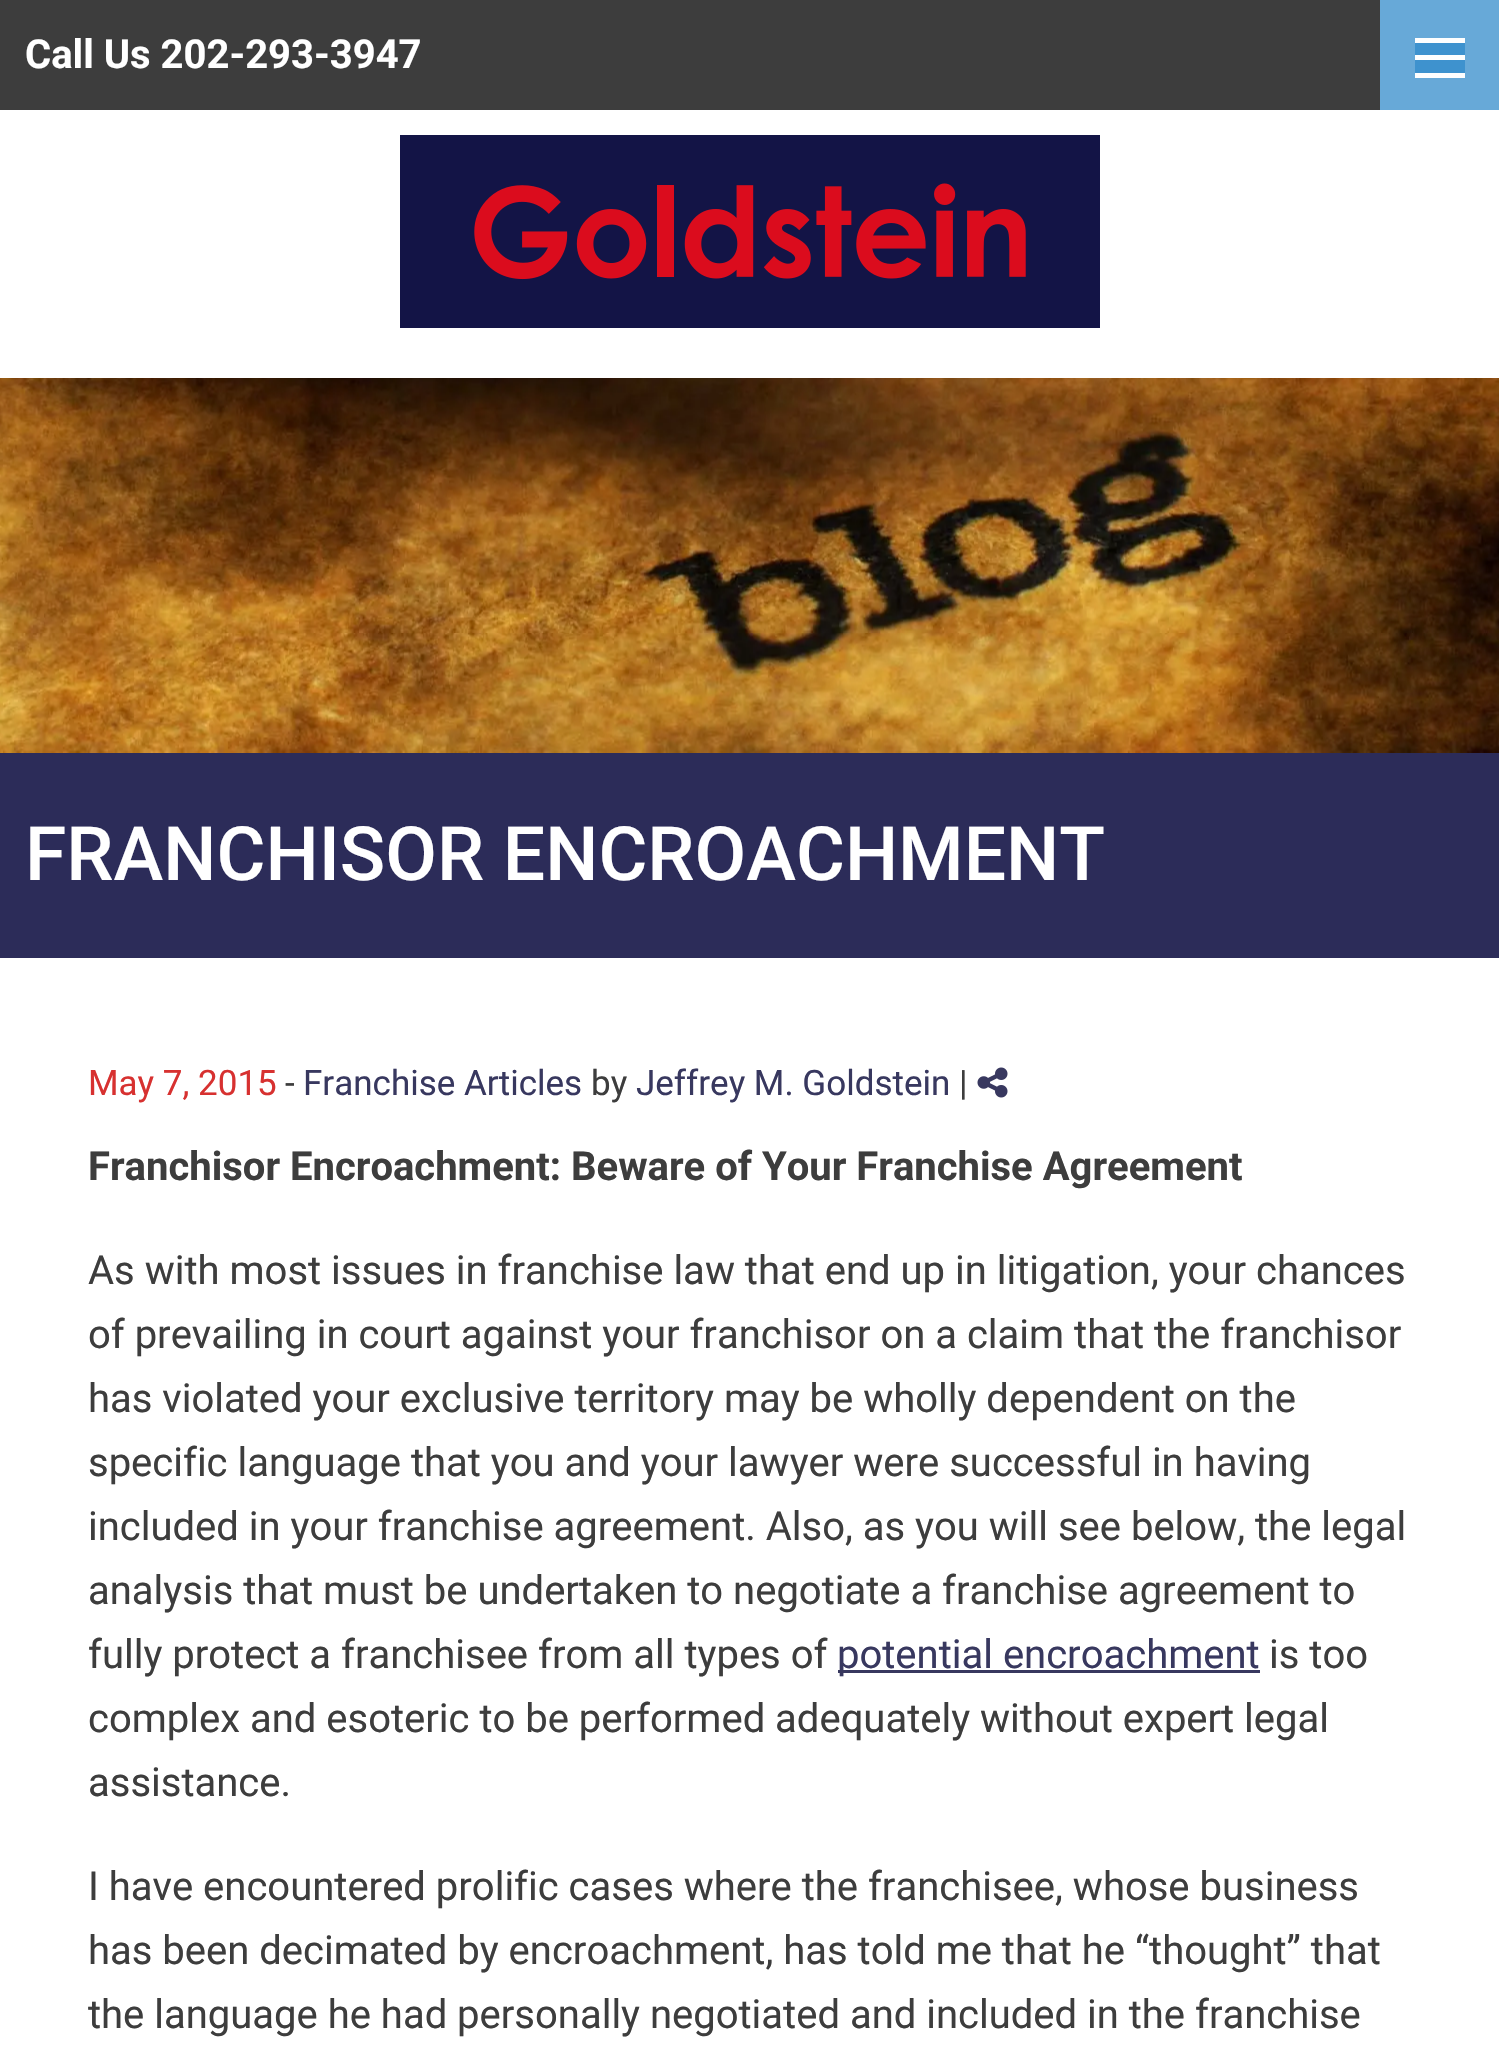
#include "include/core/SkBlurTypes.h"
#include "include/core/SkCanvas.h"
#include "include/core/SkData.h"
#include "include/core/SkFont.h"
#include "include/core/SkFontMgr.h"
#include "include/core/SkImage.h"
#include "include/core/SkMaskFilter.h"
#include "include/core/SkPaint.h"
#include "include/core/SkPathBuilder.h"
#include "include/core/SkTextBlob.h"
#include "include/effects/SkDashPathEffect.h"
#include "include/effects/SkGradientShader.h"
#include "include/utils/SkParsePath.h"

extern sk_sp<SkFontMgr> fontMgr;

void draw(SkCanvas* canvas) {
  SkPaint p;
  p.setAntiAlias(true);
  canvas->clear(SK_ColorWHITE);
  p.setColor(SkColorSetRGB(61, 61, 61));
  canvas->drawRect(SkRect::MakeLTRB(0, 0, 1380, 110), p);
  p.setColor(SkColorSetRGB(103, 169, 216));
  canvas->drawRect(SkRect::MakeLTRB(1380, 0, 1499, 110), p);
  p.setColor(SkColorSetRGB(62, 146, 206));
  canvas->drawRect(SkRect::MakeLTRB(1415, 43, 1465, 73), p);
  p.setColor(SkColorSetRGB(254, 254, 254));
  canvas->drawRect(SkRect::MakeLTRB(1415, 73, 1465, 78), p);
  canvas->drawRect(SkRect::MakeLTRB(1415, 55, 1465, 60), p);
  canvas->drawRect(SkRect::MakeLTRB(1415, 38, 1465, 43), p);
  canvas->drawImageRect(SkImages::DeferredFromEncodedData(SkData::MakeFromFileName("images/1.png")), SkRect::MakeLTRB(400, 135, 1100, 328), SkSamplingOptions());
  canvas->drawImageRect(SkImages::DeferredFromEncodedData(SkData::MakeFromFileName("images/2.png")), SkRect::MakeLTRB(0, 378, 1499, 753), SkSamplingOptions());
  p.setColor(SkColorSetRGB(44, 44, 89));
  canvas->drawRect(SkRect::MakeLTRB(0, 753, 1499, 958), p);
  canvas->drawImageRect(SkImages::DeferredFromEncodedData(SkData::MakeFromFileName("images/3.png")), SkRect::MakeLTRB(977, 1067, 1008, 1098), SkSamplingOptions());
  p.setColor(SkColorSetRGB(56, 56, 95));
  canvas->drawRect(SkRect::MakeLTRB(838, 1670, 1260, 1673), p);
  SkFont font1(fontMgr->matchFamilyStyle("Roboto", SkFontStyle::Bold()), 40);
  font1.setSubpixel(true);
  p.setColor(SK_ColorWHITE);
  canvas->drawString("Call Us 202-293-3947", 25, 68, font1, p);
  SkFont font2(fontMgr->matchFamilyStyle("Roboto", SkFontStyle(500, SkFontStyle::kNormal_Width, SkFontStyle::kUpright_Slant)), 75);
  font2.setSubpixel(true);
  canvas->drawString("FRANCHISOR ENCROACHMENT", 25, 880, font2, p);
  SkFont font3(fontMgr->matchFamilyStyle("Roboto", SkFontStyle::Normal()), 35);
  font3.setSubpixel(true);
  p.setColor(SkColorSetRGB(215, 49, 48));
  canvas->drawString("May 7, 2015", 88, 1095, font3, p);
  p.setColor(SkColorSetRGB(61, 61, 61));
  canvas->drawString("-", 285, 1095, font3, p);
  p.setColor(SkColorSetRGB(56, 56, 95));
  canvas->drawString("Franchise Articles", 303, 1095, font3, p);
  p.setColor(SkColorSetRGB(61, 61, 61));
  canvas->drawString("by", 591, 1095, font3, p);
  p.setColor(SkColorSetRGB(56, 56, 95));
  canvas->drawString("Jeffrey M. Goldstein", 636, 1095, font3, p);
  p.setColor(SkColorSetRGB(61, 61, 61));
  canvas->drawString("|", 959, 1095, font3, p);
  canvas->drawString("Franchisor Encroachment: Beware of Your Franchise Agreement", 88, 1180, font1, p);
  SkFont font4(fontMgr->matchFamilyStyle("Roboto", SkFontStyle::Normal()), 40);
  font4.setSubpixel(true);
  canvas->drawString("As with most issues in franchise law that end up in litigation, your chances", 88, 1284, font4, p);
  canvas->drawString("of prevailing in court against your franchisor on a claim that the franchisor", 88, 1348, font4, p);
  canvas->drawString("has violated your exclusive territory may be wholly dependent on the", 88, 1412, font4, p);
  canvas->drawString("specific language that you and your lawyer were successful in having", 88, 1476, font4, p);
  canvas->drawString("included in your franchise agreement. Also, as you will see below, the legal", 88, 1540, font4, p);
  canvas->drawString("analysis that must be undertaken to negotiate a franchise agreement to", 88, 1604, font4, p);
  canvas->drawString("fully protect a franchisee from all types of", 88, 1668, font4, p);
  p.setColor(SkColorSetRGB(56, 56, 95));
  canvas->drawString("potential encroachment", 837, 1668, font4, p);
  p.setColor(SkColorSetRGB(61, 61, 61));
  canvas->drawString("is too", 1269, 1668, font4, p);
  canvas->drawString("complex and esoteric to be performed adequately without expert legal", 88, 1732, font4, p);
  canvas->drawString("assistance.", 88, 1796, font4, p);
  canvas->drawString("I have encountered prolific cases where the franchisee, whose business", 88, 1900, font4, p);
  canvas->drawString("has been decimated by encroachment, has told me that he “thought” that", 88, 1964, font4, p);
  canvas->drawString("the language he had personally negotiated and included in the franchise", 88, 2028, font4, p);
}
